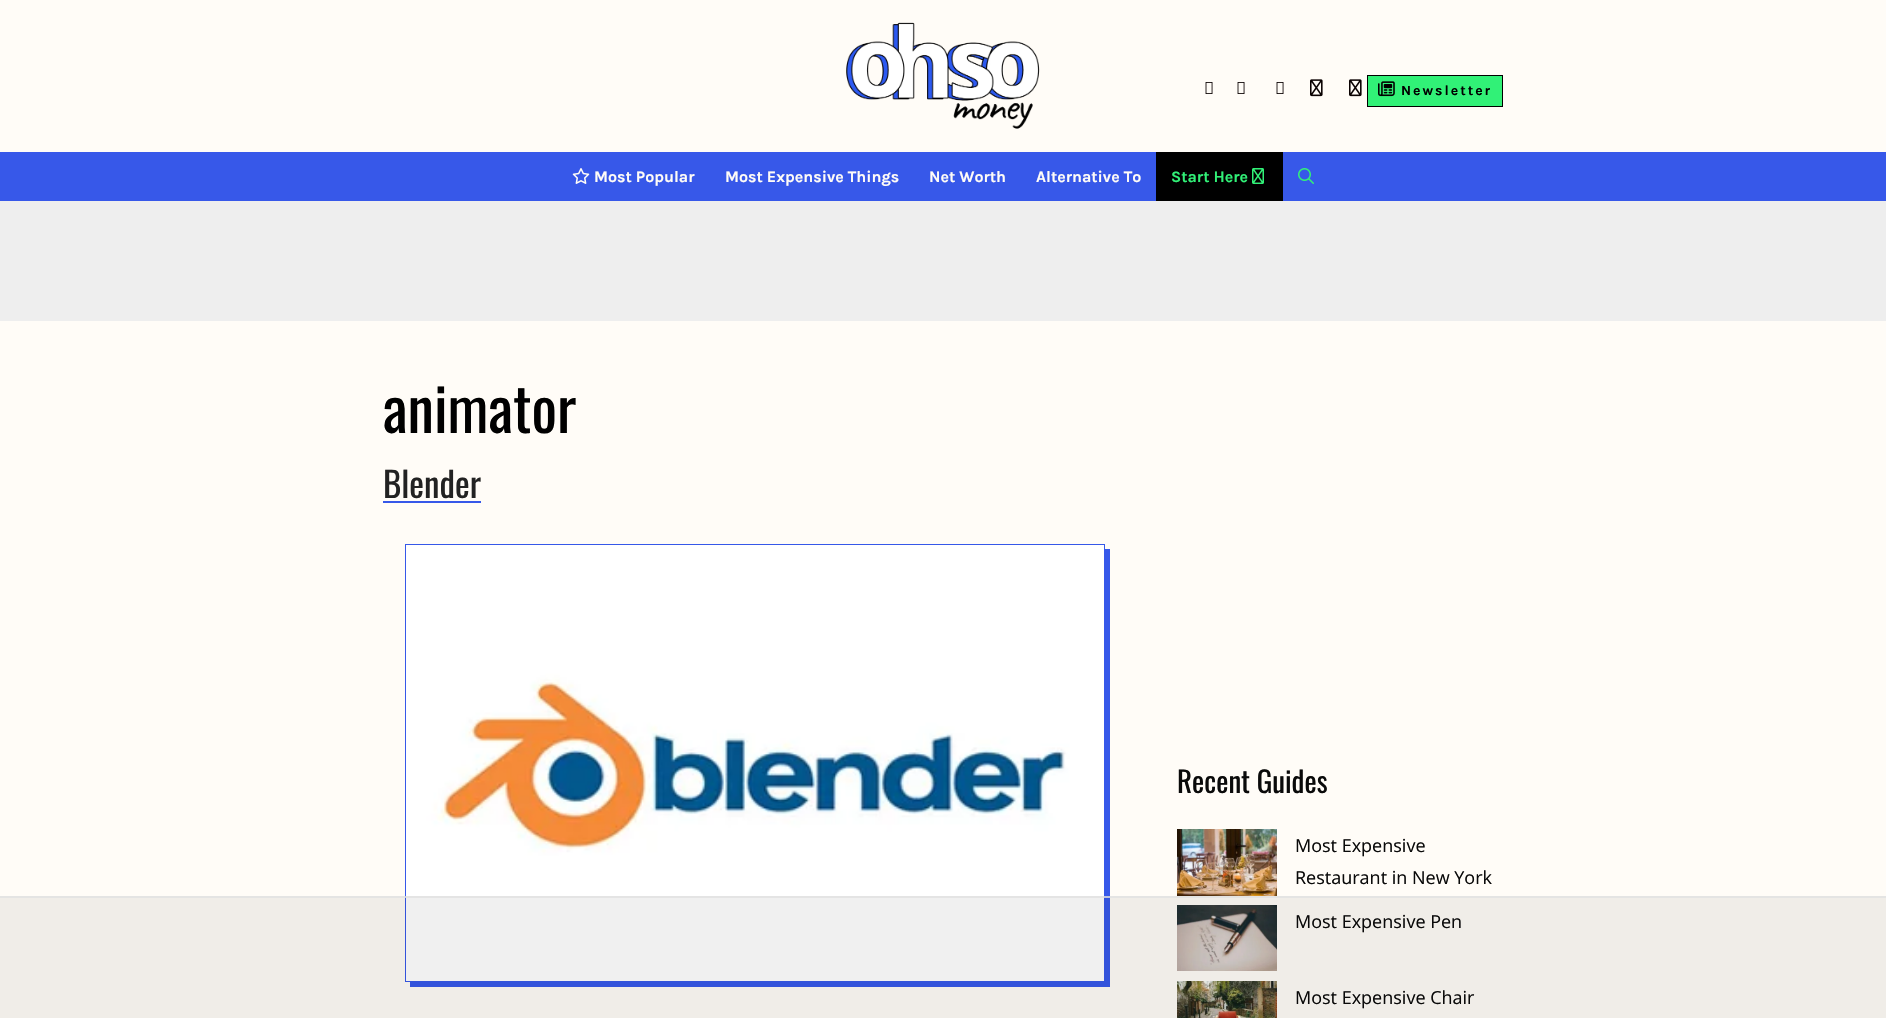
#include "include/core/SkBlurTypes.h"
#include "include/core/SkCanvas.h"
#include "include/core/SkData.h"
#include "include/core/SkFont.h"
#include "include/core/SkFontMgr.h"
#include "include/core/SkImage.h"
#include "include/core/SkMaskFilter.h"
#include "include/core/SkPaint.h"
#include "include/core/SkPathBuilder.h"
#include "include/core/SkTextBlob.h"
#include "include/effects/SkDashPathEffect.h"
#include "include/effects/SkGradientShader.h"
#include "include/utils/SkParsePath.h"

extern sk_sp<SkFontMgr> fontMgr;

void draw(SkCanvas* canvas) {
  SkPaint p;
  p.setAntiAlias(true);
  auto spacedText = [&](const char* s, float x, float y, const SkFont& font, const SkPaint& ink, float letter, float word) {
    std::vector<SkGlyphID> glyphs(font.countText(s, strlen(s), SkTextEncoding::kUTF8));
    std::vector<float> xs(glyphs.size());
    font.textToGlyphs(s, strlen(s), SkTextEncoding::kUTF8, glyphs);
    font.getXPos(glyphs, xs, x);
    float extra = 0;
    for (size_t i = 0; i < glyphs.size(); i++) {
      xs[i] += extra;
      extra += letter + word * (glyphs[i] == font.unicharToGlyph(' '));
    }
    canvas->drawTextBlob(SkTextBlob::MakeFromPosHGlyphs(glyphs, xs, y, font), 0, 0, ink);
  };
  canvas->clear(SkColorSetRGB(255, 252, 247));
  canvas->drawImageRect(SkImages::DeferredFromEncodedData(SkData::MakeFromFileName("images/1.png")), SkRect::MakeLTRB(846, 22, 1040, 129), SkSamplingOptions());
  canvas->drawImageRect(SkImages::DeferredFromEncodedData(SkData::MakeFromFileName("images/2.png")), SkRect::MakeLTRB(1205, 82, 1213, 94), SkSamplingOptions());
  canvas->drawImageRect(SkImages::DeferredFromEncodedData(SkData::MakeFromFileName("images/2.png")), SkRect::MakeLTRB(1237, 82, 1245, 94), SkSamplingOptions());
  canvas->drawImageRect(SkImages::DeferredFromEncodedData(SkData::MakeFromFileName("images/2.png")), SkRect::MakeLTRB(1276, 82, 1284, 94), SkSamplingOptions());
  canvas->drawImageRect(SkImages::DeferredFromEncodedData(SkData::MakeFromFileName("images/3.png")), SkRect::MakeLTRB(1310, 79, 1323, 97), SkSamplingOptions());
  canvas->drawImageRect(SkImages::DeferredFromEncodedData(SkData::MakeFromFileName("images/3.png")), SkRect::MakeLTRB(1349, 79, 1362, 97), SkSamplingOptions());
  p.setColor(SkColorSetRGB(49, 241, 119));
  canvas->drawRect(SkRect::MakeLTRB(1367.5f, 75.5f, 1502.5f, 106.5f), p);
  p.setStyle(SkPaint::kStroke_Style);
  p.setStrokeWidth(1);
  p.setColor(SK_ColorBLACK);
  canvas->drawRect(SkRect::MakeLTRB(1367.5f, 75.5f, 1502.5f, 106.5f), p);
  canvas->drawImageRect(SkImages::DeferredFromEncodedData(SkData::MakeFromFileName("images/4.png")), SkRect::MakeLTRB(1378, 81, 1395, 97), SkSamplingOptions());
  p.setStyle(SkPaint::kFill_Style);
  p.setColor(SkColorSetRGB(55, 88, 233));
  canvas->drawRect(SkRect::MakeLTRB(0, 152, 1886, 201), p);
  canvas->drawImageRect(SkImages::DeferredFromEncodedData(SkData::MakeFromFileName("images/5.png")), SkRect::MakeLTRB(572, 168, 590, 184), SkSamplingOptions());
  p.setColor(SK_ColorBLACK);
  canvas->drawRect(SkRect::MakeLTRB(1156, 152, 1283, 201), p);
  canvas->drawImageRect(SkImages::DeferredFromEncodedData(SkData::MakeFromFileName("images/6.png")), SkRect::MakeLTRB(1252, 168, 1264, 184), SkSamplingOptions());
  canvas->drawImageRect(SkImages::DeferredFromEncodedData(SkData::MakeFromFileName("images/7.png")), SkRect::MakeLTRB(1298, 168, 1314, 184), SkSamplingOptions());
  p.setColor(SkColorSetRGB(238, 238, 238));
  canvas->drawRect(SkRect::MakeLTRB(0, 201, 1886, 321), p);
  p.setColor(SkColorSetRGB(54, 88, 233));
  canvas->drawRect(SkRect::MakeLTRB(383, 501, 481, 503), p);
  canvas->drawPath(SkPathBuilder().moveTo(410, 982).lineTo(410, 987).lineTo(1110, 987).lineTo(1110, 549).lineTo(1105, 549).lineTo(1105, 982).close().detach(), p);
  p.setStyle(SkPaint::kStroke_Style);
  canvas->drawRect(SkRect::MakeLTRB(405.5f, 544.5f, 1104.5f, 981.5f), p);
  canvas->drawImageRect(SkImages::DeferredFromEncodedData(SkData::MakeFromFileName("images/8.png")), SkRect::MakeLTRB(406, 545, 1104, 981), SkSamplingOptions());
  canvas->drawImageRect(SkImages::DeferredFromEncodedData(SkData::MakeFromFileName("images/9.png")), SkRect::MakeLTRB(1177, 829, 1277, 896), SkSamplingOptions());
  canvas->drawImageRect(SkImages::DeferredFromEncodedData(SkData::MakeFromFileName("images/10.png")), SkRect::MakeLTRB(1177, 905, 1277, 971), SkSamplingOptions());
  canvas->drawImageRect(SkImages::DeferredFromEncodedData(SkData::MakeFromFileName("images/11.png")), SkRect::MakeLTRB(1177, 981, 1277, 1018), SkSamplingOptions());
  p.setStyle(SkPaint::kFill_Style);
  p.setColor(SkColorSetARGB(15, 0, 0, 0));
  canvas->drawRect(SkRect::MakeLTRB(0, 896, 1886, 1018), p);
  p.setColor(SkColorSetARGB(204, 225, 225, 225));
  canvas->drawRect(SkRect::MakeLTRB(0, 896, 1886, 898), p);
  SkFont font1(fontMgr->matchFamilyStyle("Karla", SkFontStyle::Bold()), 14);
  font1.setSubpixel(true);
  p.setColor(SK_ColorBLACK);
  spacedText("Newsletter", 1401, 95, font1, p, 2, 0);
  SkFont font2(fontMgr->matchFamilyStyle("Karla", SkFontStyle::Bold()), 16);
  font2.setSubpixel(true);
  p.setColor(SkColorSetRGB(255, 252, 247));
  canvas->drawString("Most Popular", 594, 182, font2, p);
  canvas->drawString("Most Expensive Things", 725, 182, font2, p);
  canvas->drawString("Net Worth", 929, 182, font2, p);
  canvas->drawString("Alternative To", 1036, 182, font2, p);
  p.setColor(SkColorSetRGB(49, 241, 119));
  canvas->drawString("Start Here", 1171, 182, font2, p);
  SkFont font3(fontMgr->matchFamilyStyle("Oswald", SkFontStyle::Normal()), 60);
  font3.setSubpixel(true);
  p.setColor(SK_ColorBLACK);
  canvas->drawString("animator", 383, 433, font3, p);
  SkFont font4(fontMgr->matchFamilyStyle("Oswald", SkFontStyle::Normal()), 35);
  font4.setSubpixel(true);
  p.setColor(SkColorSetRGB(34, 34, 34));
  canvas->drawString("Blender", 383, 498, font4, p);
  SkFont font5(fontMgr->matchFamilyStyle("Oswald", SkFontStyle::Normal()), 29);
  font5.setSubpixel(true);
  p.setColor(SkColorSetRGB(10, 10, 10));
  canvas->drawString("Recent Guides", 1177, 793, font5, p);
  SkFont font6(fontMgr->matchFamilyStyle("Open Sans", SkFontStyle::Normal()), 18);
  font6.setSubpixel(true);
  canvas->drawString("Most Expensive", 1295, 852, font6, p);
  canvas->drawString("Restaurant in New York", 1295, 884, font6, p);
  canvas->drawString("Most Expensive Pen", 1295, 928, font6, p);
  canvas->drawString("Most Expensive Chair", 1295, 1004, font6, p);
}
